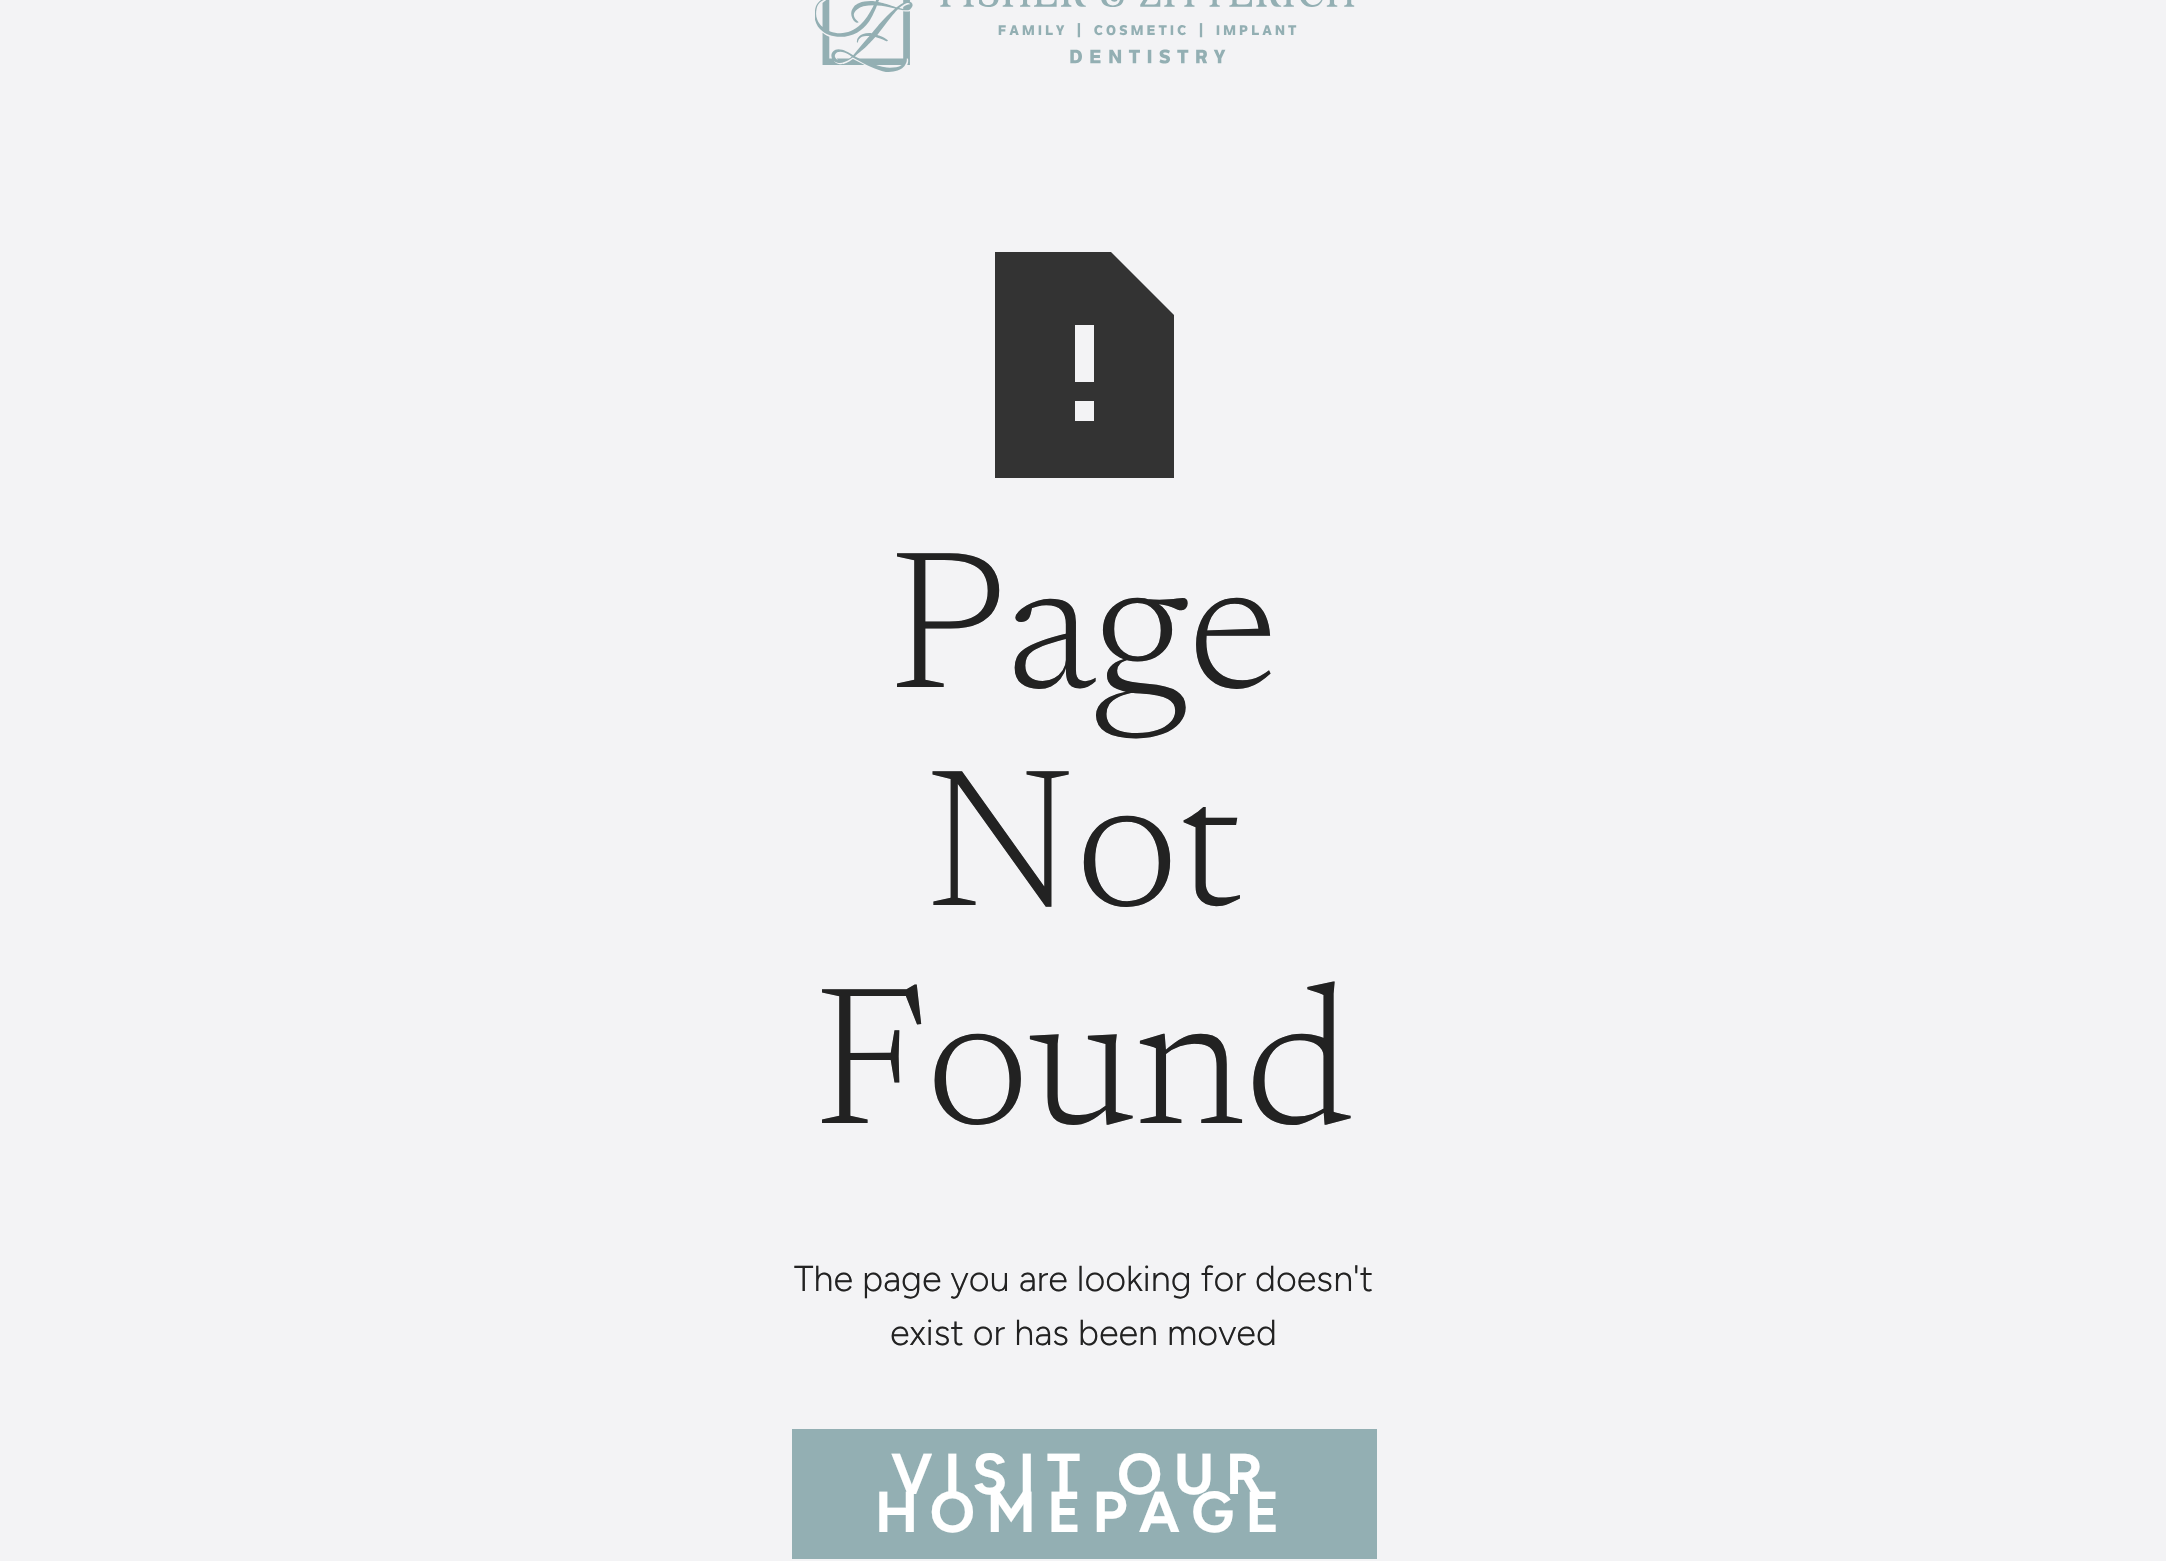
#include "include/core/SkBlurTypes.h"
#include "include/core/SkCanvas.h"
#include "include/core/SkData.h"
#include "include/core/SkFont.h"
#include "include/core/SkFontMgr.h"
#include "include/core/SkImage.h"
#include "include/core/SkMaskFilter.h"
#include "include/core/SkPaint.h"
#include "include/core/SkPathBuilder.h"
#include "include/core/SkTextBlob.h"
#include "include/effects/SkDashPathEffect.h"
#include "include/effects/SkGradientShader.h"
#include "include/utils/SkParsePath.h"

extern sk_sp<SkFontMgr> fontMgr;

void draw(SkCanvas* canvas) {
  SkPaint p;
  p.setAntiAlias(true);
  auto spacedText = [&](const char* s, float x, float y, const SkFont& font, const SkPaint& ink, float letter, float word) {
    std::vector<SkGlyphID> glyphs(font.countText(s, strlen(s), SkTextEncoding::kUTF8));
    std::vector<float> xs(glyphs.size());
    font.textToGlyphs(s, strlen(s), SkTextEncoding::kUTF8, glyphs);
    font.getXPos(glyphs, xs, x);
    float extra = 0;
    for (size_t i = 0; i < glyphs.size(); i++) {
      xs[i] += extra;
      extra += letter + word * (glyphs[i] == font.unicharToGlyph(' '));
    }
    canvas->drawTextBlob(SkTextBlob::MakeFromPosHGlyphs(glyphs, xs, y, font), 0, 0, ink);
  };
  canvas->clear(SkColorSetRGB(243, 243, 245));
  canvas->drawImageRect(SkImages::DeferredFromEncodedData(SkData::MakeFromFileName("images/1.png")), SkRect::MakeLTRB(815, 0, 1355, 72), SkSamplingOptions());
  p.setColor(SkColorSetRGB(51, 51, 51));
  canvas->drawPath(SkPathBuilder(SkPathFillType::kEvenOdd).moveTo(995, 252).lineTo(1111, 252).lineTo(1174, 315).lineTo(1174, 478).lineTo(995, 478).close().moveTo(1075, 325).lineTo(1094, 325).lineTo(1094, 382).lineTo(1075, 382).close().moveTo(1075, 401).lineTo(1094, 401).lineTo(1094, 421).lineTo(1075, 421).close().detach(), p);
  p.setColor(SkColorSetRGB(147, 175, 179));
  canvas->drawRect(SkRect::MakeLTRB(792, 1429, 1377, 1559), p);
  SkFont font1(fontMgr->matchFamilyStyle("Newsreader", SkFontStyle(300, SkFontStyle::kNormal_Width, SkFontStyle::kUpright_Slant)), 198);
  font1.setSubpixel(true);
  p.setColor(SkColorSetRGB(34, 34, 34));
  canvas->drawString("Page", 889, 687, font1, p);
  canvas->drawString("Not", 925, 905, font1, p);
  canvas->drawString("Found", 814, 1123, font1, p);
  SkFont font2(fontMgr->matchFamilyStyle("Figtree", SkFontStyle(300, SkFontStyle::kNormal_Width, SkFontStyle::kUpright_Slant)), 36);
  font2.setSubpixel(true);
  canvas->drawString("The page you are looking for doesn't", 794, 1291, font2, p);
  canvas->drawString("exist or has been moved", 890, 1345, font2, p);
  SkFont font3(fontMgr->matchFamilyStyle("Figtree", SkFontStyle::Bold()), 57.5f);
  font3.setSubpixel(true);
  p.setColor(SK_ColorWHITE);
  spacedText("VISIT OUR", 891, 1494, font3, p, 11.5f, 0);
  spacedText("HOMEPAGE", 875, 1532, font3, p, 11.5f, 0);
}
